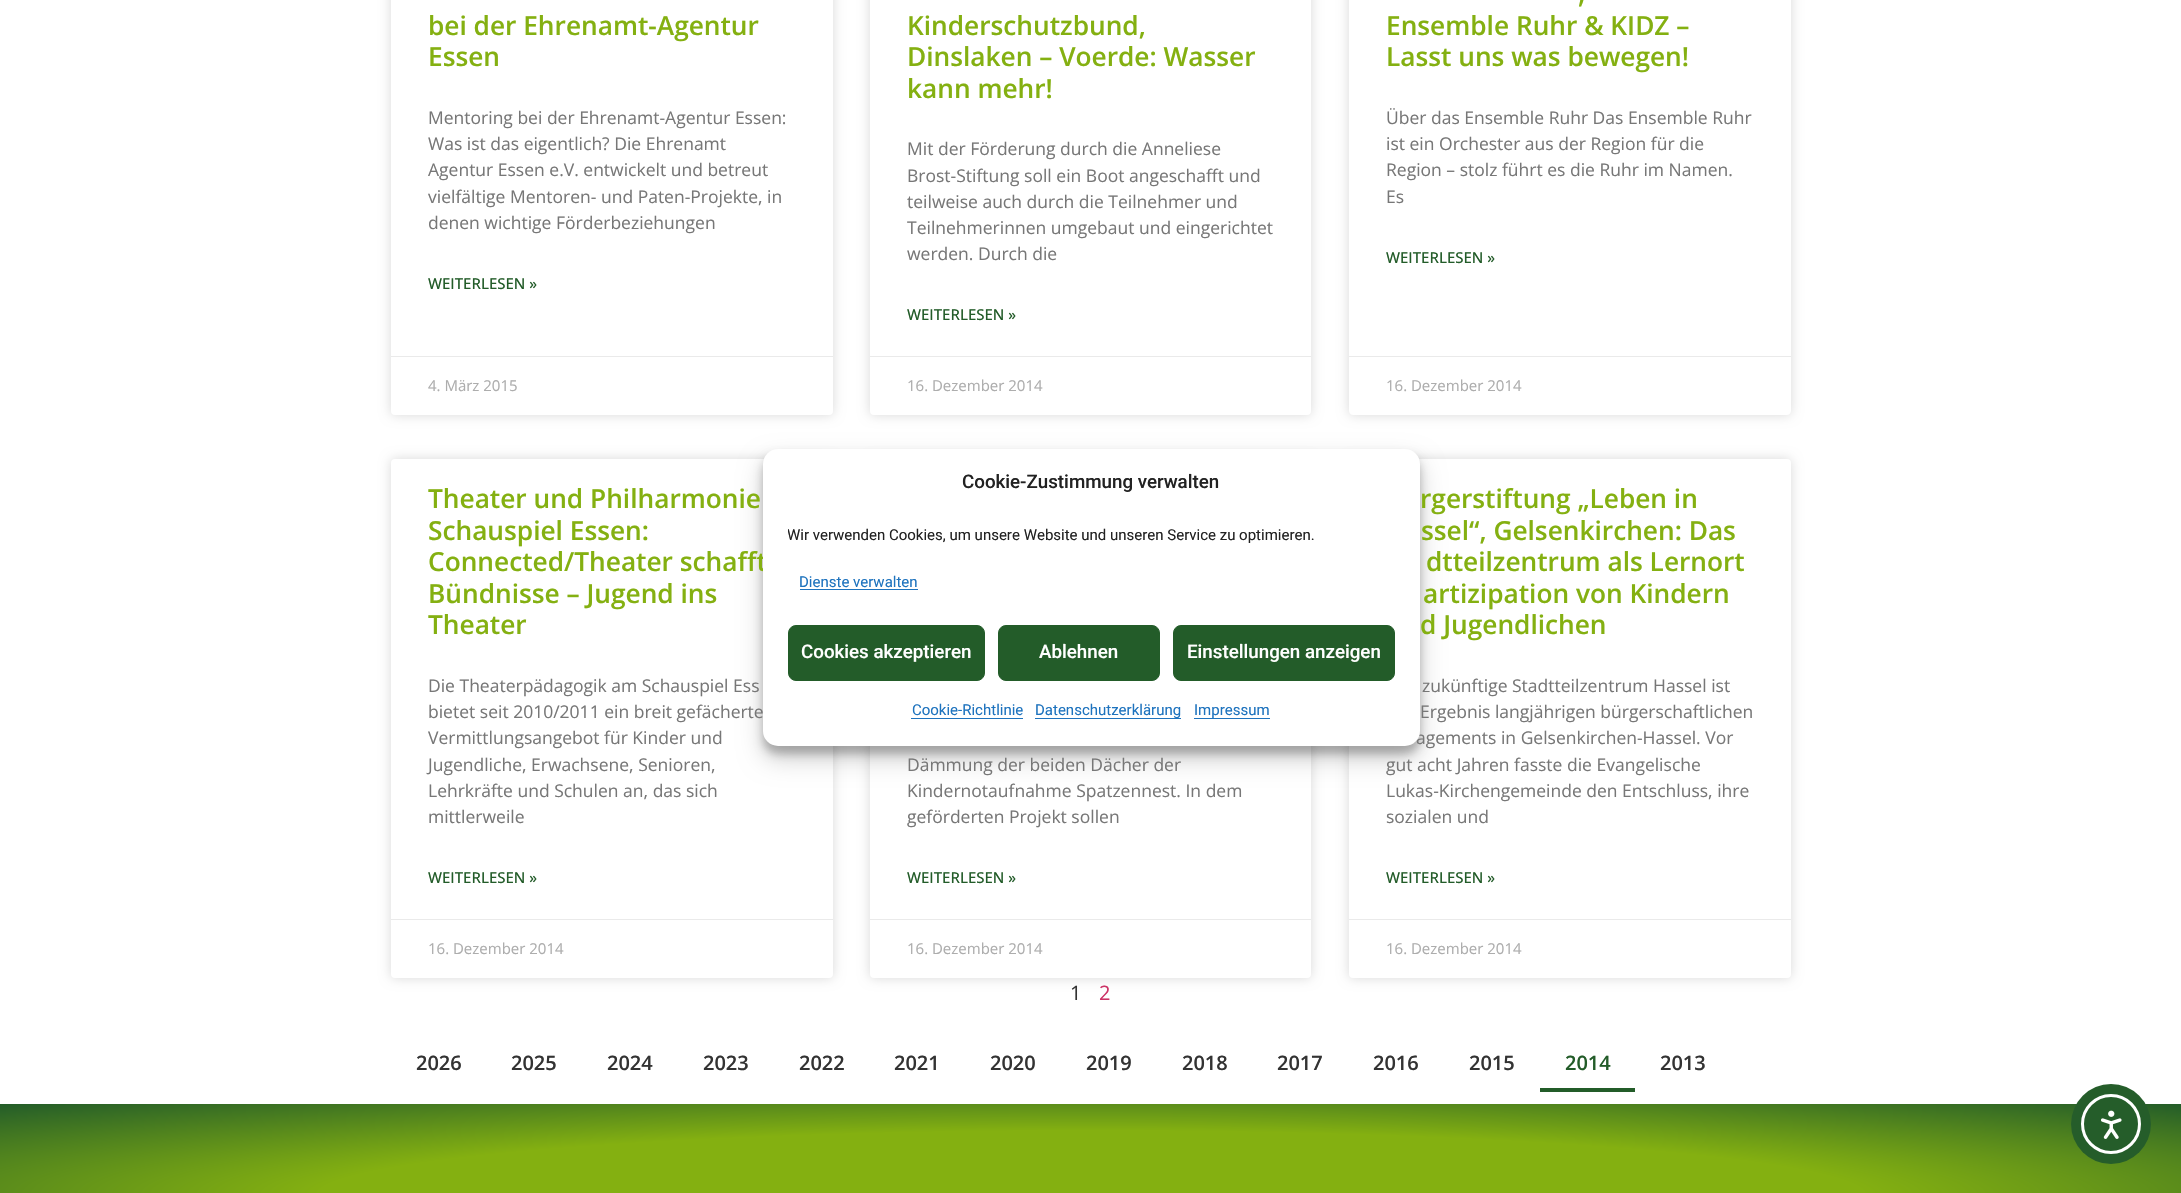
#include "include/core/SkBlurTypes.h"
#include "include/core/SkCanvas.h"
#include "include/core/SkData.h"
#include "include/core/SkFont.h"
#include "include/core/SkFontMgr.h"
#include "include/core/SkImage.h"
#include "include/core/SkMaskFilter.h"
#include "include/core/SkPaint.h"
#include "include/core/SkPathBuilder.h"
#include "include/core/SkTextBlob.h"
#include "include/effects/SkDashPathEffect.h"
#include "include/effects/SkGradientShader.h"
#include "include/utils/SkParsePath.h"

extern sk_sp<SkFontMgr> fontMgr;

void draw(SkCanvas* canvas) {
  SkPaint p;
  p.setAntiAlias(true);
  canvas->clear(SK_ColorWHITE);
  p.setColor(SkColorSetARGB(38, 0, 0, 0));
  p.setMaskFilter(SkMaskFilter::MakeBlur(kNormal_SkBlurStyle, 6));
  canvas->drawRoundRect(SkRect::MakeLTRB(391, -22, 833, 415), 4, 4, p);
  p.setMaskFilter(nullptr);
  p.setColor(SK_ColorWHITE);
  canvas->drawRoundRect(SkRect::MakeLTRB(391, -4, 833, 415), 4, 4, p);
  p.setColor(SkColorSetRGB(234, 234, 234));
  canvas->drawRect(SkRect::MakeLTRB(391, 356, 833, 357), p);
  p.setColor(SkColorSetARGB(38, 0, 0, 0));
  p.setMaskFilter(SkMaskFilter::MakeBlur(kNormal_SkBlurStyle, 6));
  canvas->drawRoundRect(SkRect::MakeLTRB(870, -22, 1311, 415), 4, 4, p);
  p.setMaskFilter(nullptr);
  p.setColor(SK_ColorWHITE);
  canvas->drawRoundRect(SkRect::MakeLTRB(870, -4, 1311, 415), 4, 4, p);
  p.setColor(SkColorSetRGB(234, 234, 234));
  canvas->drawRect(SkRect::MakeLTRB(870, 356, 1311, 357), p);
  canvas->save();
  canvas->clipPath(SkPathBuilder(SkPathFillType::kEvenOdd).moveTo(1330, 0).lineTo(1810, 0).lineTo(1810, 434).lineTo(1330, 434).close().moveTo(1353, -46).lineTo(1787, -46).cubicTo(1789, -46, 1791, -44, 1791, -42).lineTo(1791, 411).cubicTo(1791, 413, 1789, 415, 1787, 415).lineTo(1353, 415).cubicTo(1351, 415, 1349, 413, 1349, 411).lineTo(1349, -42).cubicTo(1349, -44, 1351, -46, 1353, -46).close().detach(), true);
  p.setColor(SkColorSetARGB(38, 0, 0, 0));
  p.setMaskFilter(SkMaskFilter::MakeBlur(kNormal_SkBlurStyle, 6));
  canvas->drawRoundRect(SkRect::MakeLTRB(1349, -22, 1791, 415), 4, 4, p);
  p.setMaskFilter(nullptr);
  canvas->restore();
  p.setColor(SkColorSetRGB(234, 234, 234));
  canvas->drawRect(SkRect::MakeLTRB(1349, 356, 1791, 357), p);
  p.setColor(SkColorSetARGB(38, 0, 0, 0));
  p.setMaskFilter(SkMaskFilter::MakeBlur(kNormal_SkBlurStyle, 6));
  canvas->drawRoundRect(SkRect::MakeLTRB(391, 459, 833, 978), 4, 4, p);
  p.setMaskFilter(nullptr);
  p.setColor(SK_ColorWHITE);
  canvas->drawRoundRect(SkRect::MakeLTRB(391, 459, 833, 978), 4, 4, p);
  p.setColor(SkColorSetRGB(234, 234, 234));
  canvas->drawRect(SkRect::MakeLTRB(391, 919, 833, 920), p);
  p.setColor(SkColorSetARGB(38, 0, 0, 0));
  p.setMaskFilter(SkMaskFilter::MakeBlur(kNormal_SkBlurStyle, 6));
  canvas->drawRoundRect(SkRect::MakeLTRB(870, 459, 1311, 978), 4, 4, p);
  p.setMaskFilter(nullptr);
  p.setColor(SK_ColorWHITE);
  canvas->drawRoundRect(SkRect::MakeLTRB(870, 459, 1311, 978), 4, 4, p);
  p.setColor(SkColorSetRGB(234, 234, 234));
  canvas->drawRect(SkRect::MakeLTRB(870, 919, 1311, 920), p);
  p.setColor(SkColorSetARGB(38, 0, 0, 0));
  p.setMaskFilter(SkMaskFilter::MakeBlur(kNormal_SkBlurStyle, 6));
  canvas->drawRoundRect(SkRect::MakeLTRB(1349, 459, 1791, 978), 4, 4, p);
  p.setMaskFilter(nullptr);
  p.setColor(SK_ColorWHITE);
  canvas->drawRoundRect(SkRect::MakeLTRB(1349, 459, 1791, 978), 4, 4, p);
  p.setColor(SkColorSetRGB(234, 234, 234));
  canvas->drawRect(SkRect::MakeLTRB(1349, 919, 1791, 920), p);
  p.setColor(SkColorSetRGB(35, 92, 41));
  canvas->drawRect(SkRect::MakeLTRB(1540, 1088, 1635, 1092), p);
  p.setColor(SkColorSetARGB(59, 0, 0, 0));
  p.setMaskFilter(SkMaskFilter::MakeBlur(kNormal_SkBlurStyle, 4));
  canvas->drawRoundRect(SkRect::MakeLTRB(763, 456, 1420, 754), 15, 15, p);
  p.setMaskFilter(nullptr);
  p.setColor(SkColorSetARGB(48, 0, 0, 0));
  p.setMaskFilter(SkMaskFilter::MakeBlur(kNormal_SkBlurStyle, 12.5f));
  canvas->drawRoundRect(SkRect::MakeLTRB(763, 461, 1420, 759), 15, 15, p);
  p.setMaskFilter(nullptr);
  {
    const SkColor colors[] = {SkColorSetRGB(132, 176, 17), SkColorSetRGB(35, 92, 41)};
    const float stops[] = {0.5f, 1};
    SkMatrix m = SkMatrix::Translate(1091, 1195).preScale(1542, 129);
    p.setShader(SkGradientShader::MakeRadial({0, 0}, 1, colors, stops, 2, SkTileMode::kClamp, 0, &m));
    p.setAlpha(255);
  }
  canvas->drawRect(SkRect::MakeLTRB(0, 1104, 2181, 1193), p);
  p.setShader(nullptr);
  p.setColor(SkColorSetRGB(37, 93, 42));
  canvas->drawCircle(2111, 1124, 40, p);
  p.setStyle(SkPaint::kStroke_Style);
  p.setStrokeWidth(3);
  p.setColor(SK_ColorWHITE);
  canvas->drawCircle(2111, 1124, 28.5f, p);
  canvas->drawImageRect(SkImages::DeferredFromEncodedData(SkData::MakeFromFileName("images/1.png")), SkRect::MakeLTRB(2101, 1110, 2122, 1139), SkSamplingOptions());
  SkFont font1(fontMgr->matchFamilyStyle("Open Sans", SkFontStyle(600, SkFontStyle::kNormal_Width, SkFontStyle::kUpright_Slant)), 26.25f);
  font1.setSubpixel(true);
  p.setStyle(SkPaint::kFill_Style);
  p.setColor(SkColorSetRGB(132, 176, 17));
  canvas->drawString("bei der Ehrenamt-Agentur", 428, 35, font1, p);
  canvas->drawString("Essen", 428, 66, font1, p);
  SkFont font2(fontMgr->matchFamilyStyle("Open Sans", SkFontStyle::Normal()), 17.5f);
  font2.setSubpixel(true);
  p.setColor(SkColorSetRGB(119, 119, 119));
  canvas->drawString("Mentoring bei der Ehrenamt-Agentur Essen:", 428, 124, font2, p);
  canvas->drawString("Was ist das eigentlich? Die Ehrenamt", 428, 150, font2, p);
  canvas->drawString("Agentur Essen e.V. entwickelt und betreut", 428, 176, font2, p);
  canvas->drawString("vielfältige Mentoren- und Paten-Projekte, in", 428, 203, font2, p);
  canvas->drawString("denen wichtige Förderbeziehungen", 428, 229, font2, p);
  SkFont font3(fontMgr->matchFamilyStyle("Open Sans", SkFontStyle(500, SkFontStyle::kNormal_Width, SkFontStyle::kUpright_Slant)), 15);
  font3.setSubpixel(true);
  p.setColor(SkColorSetRGB(35, 92, 41));
  canvas->drawString("WEITERLESEN »", 428, 289, font3, p);
  SkFont font4(fontMgr->matchFamilyStyle("Open Sans", SkFontStyle::Normal()), 15);
  font4.setSubpixel(true);
  p.setColor(SkColorSetRGB(173, 173, 173));
  canvas->drawString("4. März 2015", 428, 391, font4, p);
  p.setColor(SkColorSetRGB(132, 176, 17));
  canvas->drawString("Kinderschutzbund,", 907, 35, font1, p);
  canvas->drawString("Dinslaken – Voerde: Wasser", 907, 66, font1, p);
  canvas->drawString("kann mehr!", 907, 98, font1, p);
  p.setColor(SkColorSetRGB(119, 119, 119));
  canvas->drawString("Mit der Förderung durch die Anneliese", 907, 155, font2, p);
  canvas->drawString("Brost-Stiftung soll ein Boot angeschafft und", 907, 182, font2, p);
  canvas->drawString("teilweise auch durch die Teilnehmer und", 907, 208, font2, p);
  canvas->drawString("Teilnehmerinnen umgebaut und eingerichtet", 907, 234, font2, p);
  canvas->drawString("werden. Durch die", 907, 260, font2, p);
  p.setColor(SkColorSetRGB(35, 92, 41));
  canvas->drawString("WEITERLESEN »", 907, 320, font3, p);
  p.setColor(SkColorSetRGB(173, 173, 173));
  canvas->drawString("16. Dezember 2014", 907, 391, font4, p);
  p.setColor(SkColorSetRGB(132, 176, 17));
  canvas->drawString(",", 1578, 3, font1, p);
  canvas->drawString("Ensemble Ruhr & KIDZ –", 1386, 35, font1, p);
  canvas->drawString("Lasst uns was bewegen!", 1386, 66, font1, p);
  p.setColor(SkColorSetRGB(119, 119, 119));
  canvas->drawString("Über das Ensemble Ruhr Das Ensemble Ruhr", 1386, 124, font2, p);
  canvas->drawString("ist ein Orchester aus der Region für die", 1386, 150, font2, p);
  canvas->drawString("Region – stolz führt es die Ruhr im Namen.", 1386, 176, font2, p);
  canvas->drawString("Es", 1386, 203, font2, p);
  p.setColor(SkColorSetRGB(35, 92, 41));
  canvas->drawString("WEITERLESEN »", 1386, 263, font3, p);
  p.setColor(SkColorSetRGB(173, 173, 173));
  canvas->drawString("16. Dezember 2014", 1386, 391, font4, p);
  p.setColor(SkColorSetRGB(132, 176, 17));
  canvas->drawString("Theater und Philharmonie", 428, 508, font1, p);
  canvas->drawString("Schauspiel Essen:", 428, 540, font1, p);
  canvas->drawString("Connected/Theater schafft", 428, 571, font1, p);
  canvas->drawString("Bündnisse – Jugend ins", 428, 603, font1, p);
  canvas->drawString("Theater", 428, 634, font1, p);
  p.setColor(SkColorSetRGB(119, 119, 119));
  canvas->drawString("Die Theaterpädagogik am Schauspiel Ess", 428, 692, font2, p);
  canvas->drawString("bietet seit 2010/2011 ein breit gefächerte", 428, 718, font2, p);
  canvas->drawString("Vermittlungsangebot für Kinder und", 428, 744, font2, p);
  canvas->drawString("Jugendliche, Erwachsene, Senioren,", 428, 771, font2, p);
  canvas->drawString("Lehrkräfte und Schulen an, das sich", 428, 797, font2, p);
  canvas->drawString("mittlerweile", 428, 823, font2, p);
  p.setColor(SkColorSetRGB(35, 92, 41));
  canvas->drawString("WEITERLESEN »", 428, 883, font3, p);
  p.setColor(SkColorSetRGB(173, 173, 173));
  canvas->drawString("16. Dezember 2014", 428, 954, font4, p);
  p.setColor(SkColorSetRGB(119, 119, 119));
  canvas->drawString("Dämmung der beiden Dächer der", 907, 771, font2, p);
  canvas->drawString("Kindernotaufnahme Spatzennest. In dem", 907, 797, font2, p);
  canvas->drawString("geförderten Projekt sollen", 907, 823, font2, p);
  p.setColor(SkColorSetRGB(35, 92, 41));
  canvas->drawString("WEITERLESEN »", 907, 883, font3, p);
  p.setColor(SkColorSetRGB(173, 173, 173));
  canvas->drawString("16. Dezember 2014", 907, 954, font4, p);
  p.setColor(SkColorSetRGB(132, 176, 17));
  canvas->drawString("rgerstiftung „Leben in", 1420, 508, font1, p);
  canvas->drawString("ssel“, Gelsenkirchen: Das", 1421, 540, font1, p);
  canvas->drawString("dtteilzentrum als Lernort", 1426, 571, font1, p);
  canvas->drawString("artizipation von Kindern", 1423, 603, font1, p);
  canvas->drawString("d Jugendlichen", 1420, 634, font1, p);
  p.setColor(SkColorSetRGB(119, 119, 119));
  canvas->drawString("zukünftige Stadtteilzentrum Hassel ist", 1422, 692, font2, p);
  canvas->drawString("Ergebnis langjährigen bürgerschaftlichen", 1420, 718, font2, p);
  canvas->drawString("agements in Gelsenkirchen-Hassel. Vor", 1416, 744, font2, p);
  canvas->drawString("gut acht Jahren fasste die Evangelische", 1386, 771, font2, p);
  canvas->drawString("Lukas-Kirchengemeinde den Entschluss, ihre", 1386, 797, font2, p);
  canvas->drawString("sozialen und", 1386, 823, font2, p);
  p.setColor(SkColorSetRGB(35, 92, 41));
  canvas->drawString("WEITERLESEN »", 1386, 883, font3, p);
  p.setColor(SkColorSetRGB(173, 173, 173));
  canvas->drawString("16. Dezember 2014", 1386, 954, font4, p);
  SkFont font5(fontMgr->matchFamilyStyle("Open Sans", SkFontStyle::Normal()), 20);
  font5.setSubpixel(true);
  p.setColor(SkColorSetRGB(51, 51, 51));
  canvas->drawString("1", 1070, 1000, font5, p);
  p.setColor(SkColorSetRGB(204, 51, 102));
  canvas->drawString("2", 1099, 1000, font5, p);
  SkFont font6(fontMgr->matchFamilyStyle("Open Sans", SkFontStyle(600, SkFontStyle::kNormal_Width, SkFontStyle::kUpright_Slant)), 20);
  font6.setSubpixel(true);
  p.setColor(SkColorSetRGB(51, 51, 51));
  canvas->drawString("2026", 416, 1070, font6, p);
  canvas->drawString("2025", 511, 1070, font6, p);
  canvas->drawString("2024", 607, 1070, font6, p);
  canvas->drawString("2023", 703, 1070, font6, p);
  canvas->drawString("2022", 799, 1070, font6, p);
  canvas->drawString("2021", 894, 1070, font6, p);
  canvas->drawString("2020", 990, 1070, font6, p);
  canvas->drawString("2019", 1086, 1070, font6, p);
  canvas->drawString("2018", 1182, 1070, font6, p);
  canvas->drawString("2017", 1277, 1070, font6, p);
  canvas->drawString("2016", 1373, 1070, font6, p);
  canvas->drawString("2015", 1469, 1070, font6, p);
  p.setColor(SkColorSetRGB(35, 92, 41));
  canvas->drawString("2014", 1565, 1070, font6, p);
  p.setColor(SkColorSetRGB(51, 51, 51));
  canvas->drawString("2013", 1660, 1070, font6, p);
  p.setColor(SK_ColorWHITE);
  canvas->drawRoundRect(SkRect::MakeLTRB(763, 449, 1420, 746), 15, 15, p);
  SkFont font7(fontMgr->matchFamilyStyle("Roboto", SkFontStyle(500, SkFontStyle::kNormal_Width, SkFontStyle::kUpright_Slant)), 18.75f);
  font7.setSubpixel(true);
  p.setColor(SkColorSetRGB(34, 34, 34));
  canvas->drawString("Cookie-Zustimmung verwalten", 962, 488, font7, p);
  canvas->save();
  canvas->clipRect(SkRect::MakeLTRB(788, 524, 1395, 553));
  SkFont font8(fontMgr->matchFamilyStyle("Roboto", SkFontStyle::Normal()), 15);
  font8.setSubpixel(true);
  canvas->drawString("Wir verwenden Cookies, um unsere Website und unseren Service zu optimieren.", 787, 540, font8, p);
  canvas->restore();
  p.setColor(SkColorSetRGB(30, 115, 190));
  canvas->drawString("Dienste verwalten", 799, 587, font8, p);
  canvas->drawRect(SkRect::MakeLTRB(800, 589, 918, 590), p);
  p.setColor(SkColorSetRGB(35, 92, 41));
  canvas->drawRoundRect(SkRect::MakeLTRB(788.5f, 625.5f, 984.5f, 680.5f), 7.5f, 7.5f, p);
  p.setStyle(SkPaint::kStroke_Style);
  p.setStrokeWidth(1);
  canvas->drawRoundRect(SkRect::MakeLTRB(788.5f, 625.5f, 984.5f, 680.5f), 7.5f, 7.5f, p);
  p.setStyle(SkPaint::kFill_Style);
  p.setColor(SK_ColorWHITE);
  canvas->drawString("Cookies akzeptieren", 801, 658, font7, p);
  p.setColor(SkColorSetRGB(35, 92, 41));
  canvas->drawRoundRect(SkRect::MakeLTRB(998.5f, 625.5f, 1159.5f, 680.5f), 7.5f, 7.5f, p);
  p.setStyle(SkPaint::kStroke_Style);
  canvas->drawRoundRect(SkRect::MakeLTRB(998.5f, 625.5f, 1159.5f, 680.5f), 7.5f, 7.5f, p);
  p.setStyle(SkPaint::kFill_Style);
  p.setColor(SK_ColorWHITE);
  canvas->drawString("Ablehnen", 1039, 658, font7, p);
  p.setColor(SkColorSetRGB(35, 92, 41));
  canvas->drawRoundRect(SkRect::MakeLTRB(1173.5f, 625.5f, 1394.5f, 680.5f), 7.5f, 7.5f, p);
  p.setStyle(SkPaint::kStroke_Style);
  canvas->drawRoundRect(SkRect::MakeLTRB(1173.5f, 625.5f, 1394.5f, 680.5f), 7.5f, 7.5f, p);
  p.setStyle(SkPaint::kFill_Style);
  p.setColor(SK_ColorWHITE);
  canvas->drawString("Einstellungen anzeigen", 1187, 658, font7, p);
  p.setColor(SkColorSetRGB(30, 115, 190));
  canvas->drawString("Cookie-Richtlinie", 912, 715, font8, p);
  canvas->drawRect(SkRect::MakeLTRB(911, 718, 1023, 719), p);
  canvas->drawRect(SkRect::MakeLTRB(1035, 718, 1181, 719), p);
  canvas->drawString("Datenschutzerklärung", 1035, 715, font8, p);
  canvas->drawRect(SkRect::MakeLTRB(1194, 718, 1270, 719), p);
  canvas->drawString("Impressum", 1194, 715, font8, p);
}
